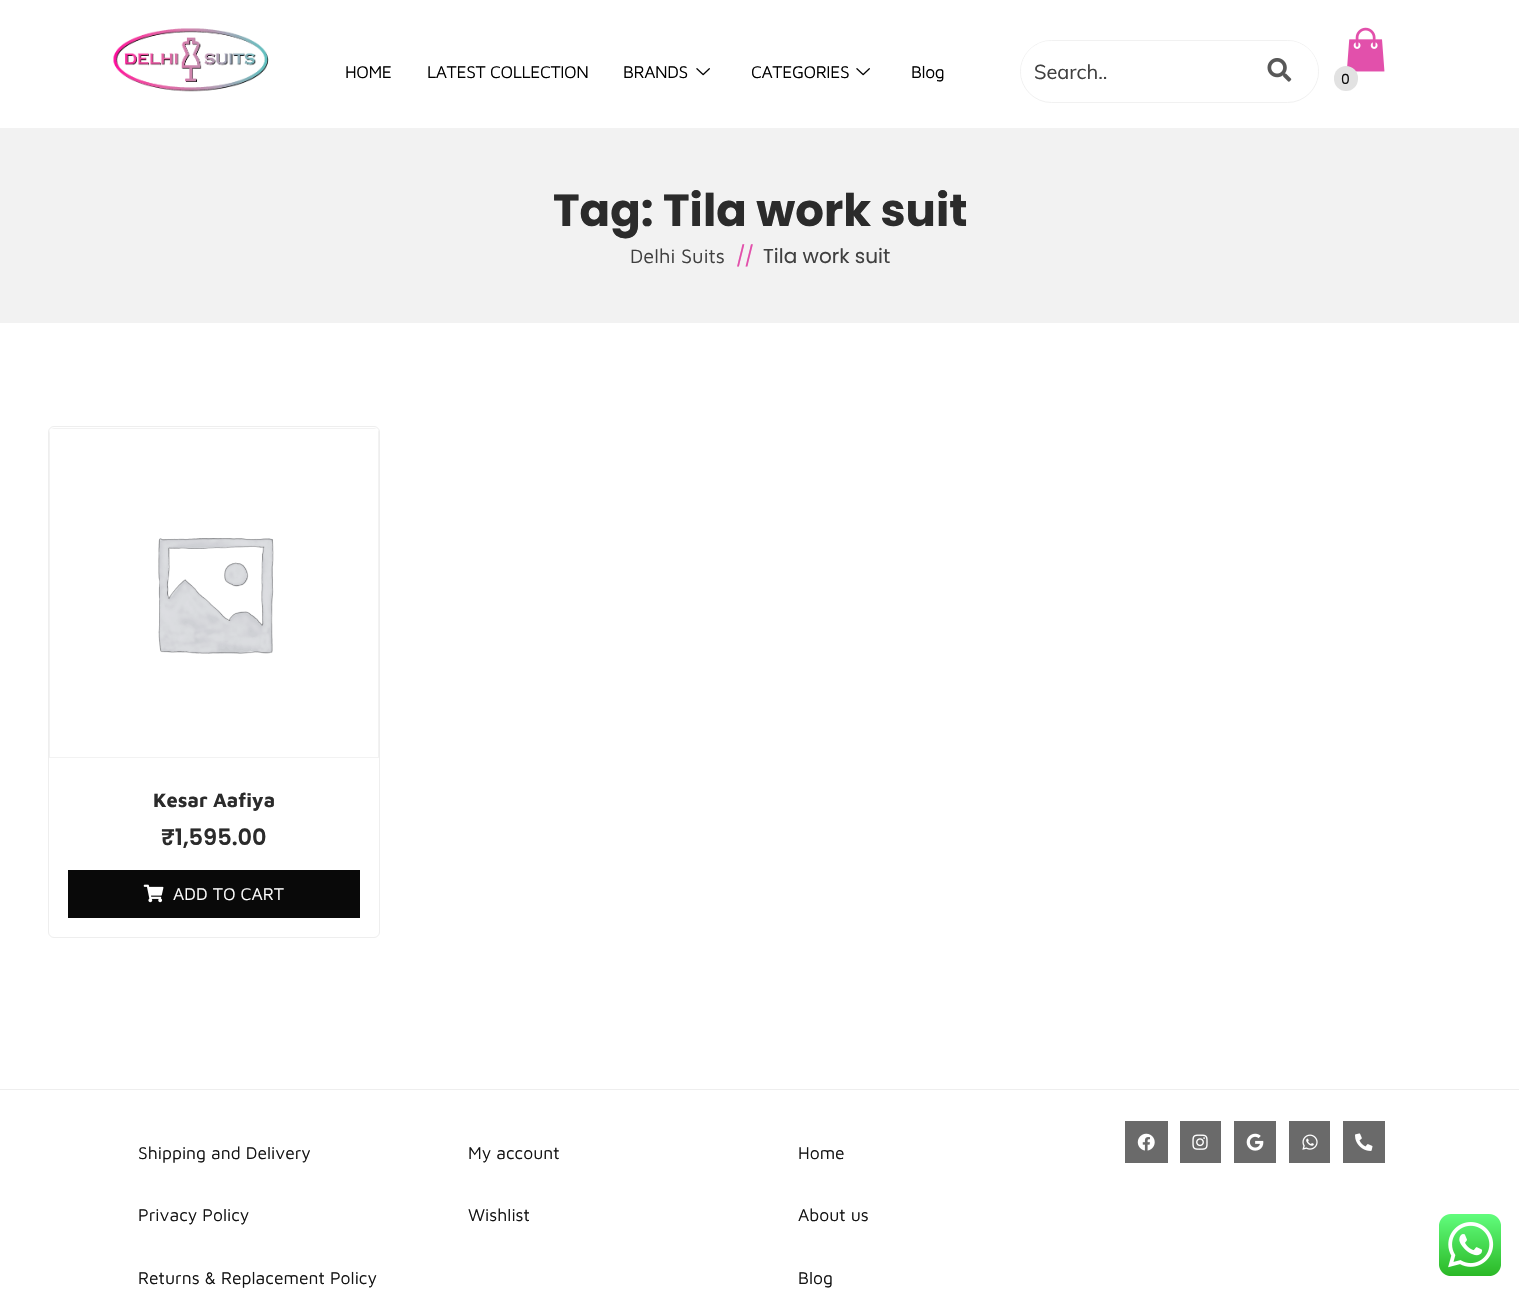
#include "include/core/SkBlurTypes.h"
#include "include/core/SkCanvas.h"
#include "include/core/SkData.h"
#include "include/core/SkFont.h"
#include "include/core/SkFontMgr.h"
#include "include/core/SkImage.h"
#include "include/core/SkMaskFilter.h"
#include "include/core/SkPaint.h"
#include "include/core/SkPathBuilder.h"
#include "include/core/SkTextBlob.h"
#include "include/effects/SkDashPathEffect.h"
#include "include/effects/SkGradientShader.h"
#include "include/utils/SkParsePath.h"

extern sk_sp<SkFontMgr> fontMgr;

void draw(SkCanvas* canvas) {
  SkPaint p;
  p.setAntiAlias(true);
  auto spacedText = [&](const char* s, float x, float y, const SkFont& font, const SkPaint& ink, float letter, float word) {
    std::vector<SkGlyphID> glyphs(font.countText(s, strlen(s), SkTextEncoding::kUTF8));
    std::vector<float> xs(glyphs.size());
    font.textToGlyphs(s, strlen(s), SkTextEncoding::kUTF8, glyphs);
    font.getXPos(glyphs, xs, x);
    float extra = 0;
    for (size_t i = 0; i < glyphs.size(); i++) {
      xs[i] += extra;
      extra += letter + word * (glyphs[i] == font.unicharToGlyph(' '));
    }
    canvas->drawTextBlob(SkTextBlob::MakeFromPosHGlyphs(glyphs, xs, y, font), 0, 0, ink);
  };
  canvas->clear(SK_ColorWHITE);
  canvas->drawImageRect(SkImages::DeferredFromEncodedData(SkData::MakeFromFileName("images/1.png")), SkRect::MakeLTRB(113, 28, 269, 92), SkSamplingOptions());
  canvas->drawImageRect(SkImages::DeferredFromEncodedData(SkData::MakeFromFileName("images/2.png")), SkRect::MakeLTRB(696, 68, 710, 76), SkSamplingOptions());
  canvas->drawImageRect(SkImages::DeferredFromEncodedData(SkData::MakeFromFileName("images/2.png")), SkRect::MakeLTRB(856, 68, 870, 76), SkSamplingOptions());
  p.setStyle(SkPaint::kStroke_Style);
  p.setStrokeWidth(1);
  p.setColor(SkColorSetRGB(241, 241, 241));
  canvas->drawRoundRect(SkRect::MakeLTRB(1020.5f, 40.5f, 1318.5f, 102.5f), 31, 31, p);
  p.setStyle(SkPaint::kFill_Style);
  p.setColor(SK_ColorWHITE);
  canvas->drawPath(SkPathBuilder().moveTo(1051, 41).lineTo(1218, 41).lineTo(1218, 101).lineTo(1051, 101).cubicTo(1034.5f, 101, 1021, 87.5f, 1021, 71).cubicTo(1021, 54.5f, 1034.5f, 41, 1051, 41).close().detach(), p);
  canvas->drawPath(SkPathBuilder().moveTo(1224, 41).lineTo(1288, 41).cubicTo(1304.5f, 41, 1318, 54.5f, 1318, 71).cubicTo(1318, 87.5f, 1304.5f, 101, 1288, 101).lineTo(1224, 101).cubicTo(1220.5f, 101, 1218, 98.5f, 1218, 95).lineTo(1218, 47).cubicTo(1218, 43.5f, 1220.5f, 41, 1224, 41).close().detach(), p);
  canvas->drawImageRect(SkImages::DeferredFromEncodedData(SkData::MakeFromFileName("images/3.png")), SkRect::MakeLTRB(1267, 58, 1292, 82), SkSamplingOptions());
  canvas->drawImageRect(SkImages::DeferredFromEncodedData(SkData::MakeFromFileName("images/4.png")), SkRect::MakeLTRB(1347, 27, 1385, 72), SkSamplingOptions());
  p.setColor(SkColorSetRGB(226, 226, 226));
  canvas->drawRoundRect(SkRect::MakeLTRB(1334, 66, 1358, 91), 12, 12, p);
  p.setColor(SkColorSetRGB(242, 242, 242));
  canvas->drawRect(SkRect::MakeLTRB(0, 128, 1519, 323), p);
  p.setStyle(SkPaint::kStroke_Style);
  p.setColor(SkColorSetRGB(238, 238, 238));
  canvas->drawRoundRect(SkRect::MakeLTRB(48.5f, 426.5f, 379.5f, 937.5f), 5.5f, 5.5f, p);
  p.setStyle(SkPaint::kFill_Style);
  p.setColor(SkColorSetRGB(242, 242, 242));
  canvas->drawPath(SkPathBuilder(SkPathFillType::kEvenOdd).moveTo(49, 433).lineTo(49, 758).lineTo(379, 758).lineTo(379, 433).cubicTo(379, 432, 379, 431, 378, 430).lineTo(378, 757).lineTo(50, 757).lineTo(50, 430).close().moveTo(54, 428).lineTo(51, 429).lineTo(377, 429).lineTo(374, 428).close().detach(), p);
  canvas->drawImageRect(SkImages::DeferredFromEncodedData(SkData::MakeFromFileName("images/5.png")), SkRect::MakeLTRB(158, 538, 274, 654), SkSamplingOptions());
  p.setColor(SkColorSetRGB(9, 9, 9));
  canvas->drawRect(SkRect::MakeLTRB(68, 870, 360, 918), p);
  canvas->drawImageRect(SkImages::DeferredFromEncodedData(SkData::MakeFromFileName("images/6.png")), SkRect::MakeLTRB(143, 884, 164, 903), SkSamplingOptions());
  p.setColor(SkColorSetRGB(238, 238, 238));
  canvas->drawRect(SkRect::MakeLTRB(0, 1089, 1519, 1090), p);
  p.setColor(SkColorSetRGB(106, 106, 106));
  canvas->drawRect(SkRect::MakeLTRB(1125, 1121, 1168, 1163), p);
  canvas->drawImageRect(SkImages::DeferredFromEncodedData(SkData::MakeFromFileName("images/7.png")), SkRect::MakeLTRB(1137, 1133, 1155, 1151), SkSamplingOptions());
  canvas->drawRect(SkRect::MakeLTRB(1180, 1121, 1221, 1163), p);
  canvas->drawImageRect(SkImages::DeferredFromEncodedData(SkData::MakeFromFileName("images/8.png")), SkRect::MakeLTRB(1192, 1134, 1208, 1150), SkSamplingOptions());
  canvas->drawRect(SkRect::MakeLTRB(1234, 1121, 1276, 1163), p);
  canvas->drawImageRect(SkImages::DeferredFromEncodedData(SkData::MakeFromFileName("images/9.png")), SkRect::MakeLTRB(1246, 1133, 1264, 1151), SkSamplingOptions());
  canvas->drawRect(SkRect::MakeLTRB(1289, 1121, 1330, 1163), p);
  canvas->drawImageRect(SkImages::DeferredFromEncodedData(SkData::MakeFromFileName("images/10.png")), SkRect::MakeLTRB(1302, 1134, 1318, 1150), SkSamplingOptions());
  canvas->drawRect(SkRect::MakeLTRB(1343, 1121, 1385, 1163), p);
  canvas->drawImageRect(SkImages::DeferredFromEncodedData(SkData::MakeFromFileName("images/11.png")), SkRect::MakeLTRB(1355, 1133, 1373, 1151), SkSamplingOptions());
  canvas->drawImageRect(SkImages::DeferredFromEncodedData(SkData::MakeFromFileName("images/12.png")), SkRect::MakeLTRB(1439, 1214, 1501, 1276), SkSamplingOptions());
  SkFont font1(fontMgr->matchFamilyStyle("Maven Pro", SkFontStyle::Normal()), 17.5f);
  font1.setSubpixel(true);
  p.setColor(SK_ColorBLACK);
  spacedText("HOME", 345, 78, font1, p, -0.4f, 0);
  spacedText("LATEST COLLECTION", 427, 78, font1, p, -0.4f, 0);
  spacedText("BRANDS", 623, 78, font1, p, -0.4f, 0);
  spacedText("CATEGORIES", 751, 78, font1, p, -0.4f, 0);
  spacedText("Blog", 911, 78, font1, p, -0.4f, 0);
  SkFont font2(fontMgr->matchFamilyStyle("Muli", SkFontStyle::Normal()), 20);
  font2.setSubpixel(true);
  p.setColor(SkColorSetRGB(64, 64, 64));
  canvas->drawString("Search..", 1034, 79, font2, p);
  SkFont font3(fontMgr->matchFamilyStyle("Poppins", SkFontStyle::Normal()), 14);
  font3.setSubpixel(true);
  p.setColor(SkColorSetRGB(10, 10, 10));
  canvas->drawString("0", 1341, 84, font3, p);
  SkFont font4(fontMgr->matchFamilyStyle("Poppins", SkFontStyle::Bold()), 45);
  font4.setSubpixel(true);
  p.setColor(SkColorSetRGB(43, 43, 43));
  canvas->drawString("Tag: Tila work suit", 553, 226, font4, p);
  SkFont font5(fontMgr->matchFamilyStyle("Maven Pro", SkFontStyle::Normal()), 20);
  font5.setSubpixel(true);
  p.setColor(SkColorSetRGB(64, 64, 64));
  canvas->drawString("Delhi Suits", 630, 263, font5, p);
  SkFont font6(fontMgr->matchFamilyStyle("Poppins", SkFontStyle::Normal()), 20);
  font6.setSubpixel(true);
  p.setColor(SkColorSetRGB(226, 80, 171));
  spacedText("//", 736, 263, font6, p, -1, 0);
  p.setColor(SkColorSetRGB(64, 64, 64));
  canvas->drawString("Tila work suit", 763, 263, font6, p);
  SkFont font7(fontMgr->matchFamilyStyle("Maven Pro", SkFontStyle::Bold()), 20);
  font7.setSubpixel(true);
  p.setColor(SkColorSetRGB(43, 43, 43));
  canvas->drawString("Kesar Aafiya", 153, 807, font7, p);
  SkFont font8(fontMgr->matchFamilyStyle("Poppins", SkFontStyle(600, SkFontStyle::kNormal_Width, SkFontStyle::kUpright_Slant)), 22.5f);
  font8.setSubpixel(true);
  canvas->drawString("₹1,595.00", 161, 845, font8, p);
  p.setColor(SK_ColorWHITE);
  canvas->drawString("ADD TO CART", 173, 900, font1, p);
  p.setColor(SkColorSetRGB(20, 20, 20));
  canvas->drawString("Shipping and Delivery", 138, 1159, font1, p);
  canvas->drawString("Privacy Policy", 138, 1221, font1, p);
  canvas->drawString("Returns & Replacement Policy", 138, 1284, font1, p);
  canvas->drawString("My account", 468, 1159, font1, p);
  canvas->drawString("Wishlist", 468, 1221, font1, p);
  canvas->drawString("Home", 798, 1159, font1, p);
  canvas->drawString("About us", 798, 1221, font1, p);
  canvas->drawString("Blog", 798, 1284, font1, p);
}
